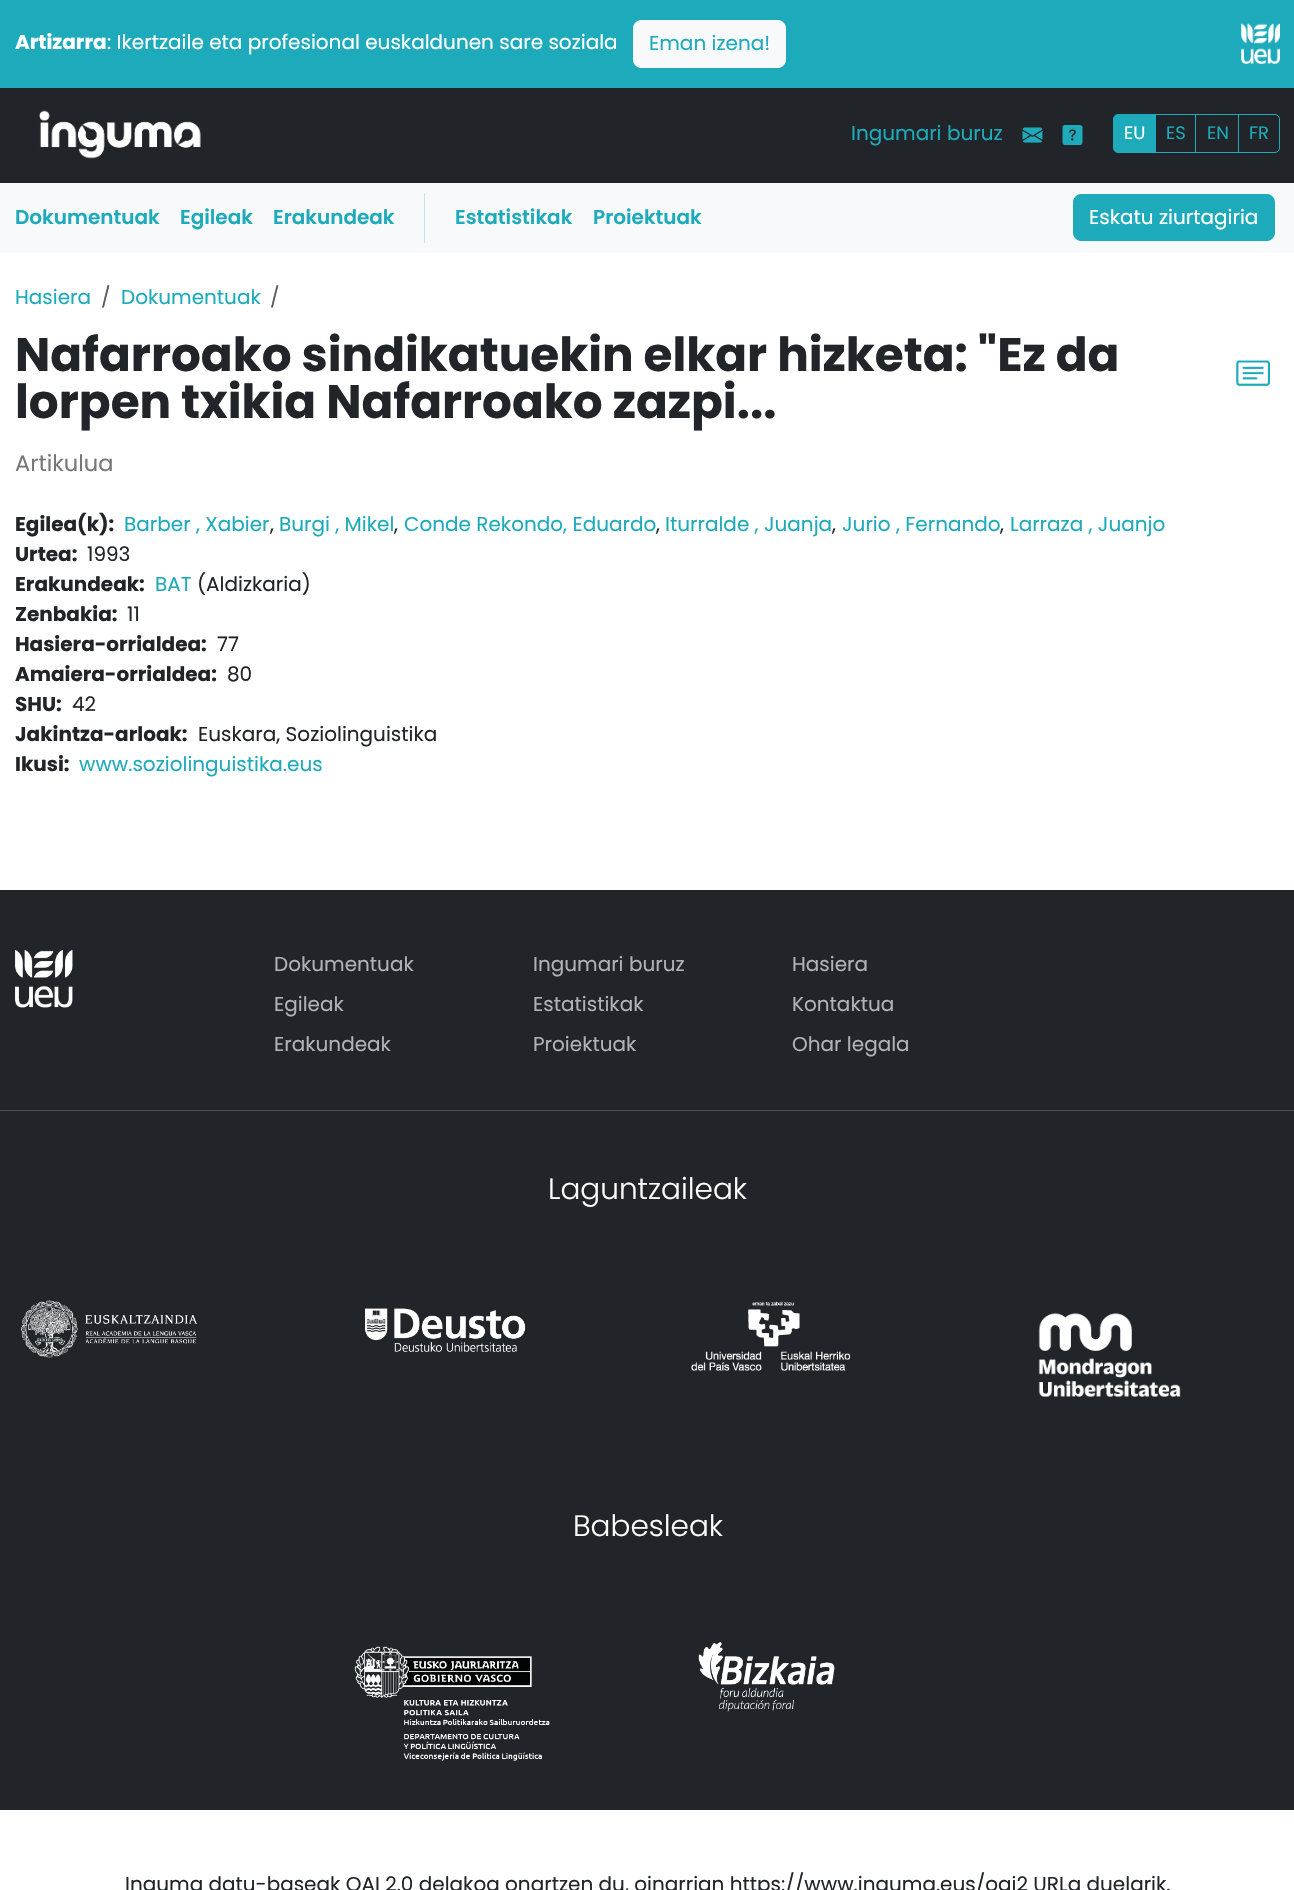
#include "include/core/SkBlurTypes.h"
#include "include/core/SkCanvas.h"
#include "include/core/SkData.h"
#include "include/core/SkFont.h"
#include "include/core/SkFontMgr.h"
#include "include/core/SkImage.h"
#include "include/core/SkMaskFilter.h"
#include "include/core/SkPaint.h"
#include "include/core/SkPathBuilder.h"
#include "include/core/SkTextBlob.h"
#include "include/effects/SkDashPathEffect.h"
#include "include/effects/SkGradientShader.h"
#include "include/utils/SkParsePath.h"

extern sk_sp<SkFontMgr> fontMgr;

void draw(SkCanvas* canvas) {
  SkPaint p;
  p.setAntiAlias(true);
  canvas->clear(SK_ColorWHITE);
  p.setColor(SkColorSetRGB(29, 171, 187));
  canvas->drawRect(SkRect::MakeLTRB(0, 0, 1294, 88), p);
  p.setColor(SkColorSetRGB(248, 249, 250));
  canvas->drawRoundRect(SkRect::MakeLTRB(633.5f, 20.5f, 785.5f, 67.5f), 7.5f, 7.5f, p);
  p.setStyle(SkPaint::kStroke_Style);
  p.setStrokeWidth(1);
  canvas->drawRoundRect(SkRect::MakeLTRB(633.5f, 20.5f, 785.5f, 67.5f), 7.5f, 7.5f, p);
  canvas->drawImageRect(SkImages::DeferredFromEncodedData(SkData::MakeFromFileName("images/1.png")), SkRect::MakeLTRB(1241, 23, 1280, 64), SkSamplingOptions());
  p.setStyle(SkPaint::kFill_Style);
  p.setColor(SkColorSetRGB(33, 37, 41));
  canvas->drawRect(SkRect::MakeLTRB(0, 88, 1294, 183), p);
  canvas->drawImageRect(SkImages::DeferredFromEncodedData(SkData::MakeFromFileName("images/2.png")), SkRect::MakeLTRB(39, 110, 201, 159), SkSamplingOptions());
  canvas->drawImageRect(SkImages::DeferredFromEncodedData(SkData::MakeFromFileName("images/3.png")), SkRect::MakeLTRB(1022, 127, 1043, 143), SkSamplingOptions());
  canvas->drawImageRect(SkImages::DeferredFromEncodedData(SkData::MakeFromFileName("images/4.png")), SkRect::MakeLTRB(1062, 125, 1083, 145), SkSamplingOptions());
  p.setStyle(SkPaint::kStroke_Style);
  p.setColor(SkColorSetRGB(29, 171, 187));
  canvas->drawRect(SkRect::MakeLTRB(1155.5f, 114.5f, 1195.5f, 152.5f), p);
  p.setStyle(SkPaint::kFill_Style);
  canvas->drawPath(SkPathBuilder().moveTo(1118, 114.5f).lineTo(1155.5f, 114.5f).lineTo(1155.5f, 152.5f).lineTo(1118, 152.5f).cubicTo(1115.5f, 152.5f, 1113.5f, 150.5f, 1113.5f, 148).lineTo(1113.5f, 119).cubicTo(1113.5f, 116.5f, 1115.5f, 114.5f, 1118, 114.5f).close().detach(), p);
  p.setStyle(SkPaint::kStroke_Style);
  canvas->drawPath(SkPathBuilder().moveTo(1118, 114.5f).lineTo(1155.5f, 114.5f).lineTo(1155.5f, 152.5f).lineTo(1118, 152.5f).cubicTo(1115.5f, 152.5f, 1113.5f, 150.5f, 1113.5f, 148).lineTo(1113.5f, 119).cubicTo(1113.5f, 116.5f, 1115.5f, 114.5f, 1118, 114.5f).close().detach(), p);
  canvas->drawRect(SkRect::MakeLTRB(1195.5f, 114.5f, 1238.5f, 152.5f), p);
  canvas->drawPath(SkPathBuilder().moveTo(1238.5f, 114.5f).lineTo(1275, 114.5f).cubicTo(1277.5f, 114.5f, 1279.5f, 116.5f, 1279.5f, 119).lineTo(1279.5f, 148).cubicTo(1279.5f, 150.5f, 1277.5f, 152.5f, 1275, 152.5f).lineTo(1238.5f, 152.5f).close().detach(), p);
  p.setStyle(SkPaint::kFill_Style);
  p.setColor(SkColorSetRGB(248, 249, 250));
  canvas->drawRect(SkRect::MakeLTRB(0, 183, 1294, 253), p);
  p.setColor(SkColorSetRGB(193, 230, 234));
  canvas->drawRect(SkRect::MakeLTRB(424, 193, 425, 243), p);
  p.setColor(SkColorSetRGB(29, 171, 187));
  canvas->drawRoundRect(SkRect::MakeLTRB(1073.5f, 194.5f, 1274.5f, 240.5f), 7.5f, 7.5f, p);
  p.setStyle(SkPaint::kStroke_Style);
  canvas->drawRoundRect(SkRect::MakeLTRB(1073.5f, 194.5f, 1274.5f, 240.5f), 7.5f, 7.5f, p);
  canvas->drawImageRect(SkImages::DeferredFromEncodedData(SkData::MakeFromFileName("images/5.png")), SkRect::MakeLTRB(1236, 360, 1270, 386), SkSamplingOptions());
  p.setStyle(SkPaint::kFill_Style);
  p.setColor(SkColorSetRGB(33, 37, 41));
  canvas->drawRect(SkRect::MakeLTRB(0, 890, 1294, 1810), p);
  p.setColor(SkColorSetRGB(73, 80, 87));
  canvas->drawRect(SkRect::MakeLTRB(0, 1110, 1294, 1111), p);
  canvas->drawImageRect(SkImages::DeferredFromEncodedData(SkData::MakeFromFileName("images/6.png")), SkRect::MakeLTRB(15, 950, 73, 1008), SkSamplingOptions());
  canvas->drawImageRect(SkImages::DeferredFromEncodedData(SkData::MakeFromFileName("images/7.png")), SkRect::MakeLTRB(21, 1300, 197, 1358), SkSamplingOptions());
  canvas->drawImageRect(SkImages::DeferredFromEncodedData(SkData::MakeFromFileName("images/8.png")), SkRect::MakeLTRB(365, 1308, 526, 1352), SkSamplingOptions());
  canvas->drawImageRect(SkImages::DeferredFromEncodedData(SkData::MakeFromFileName("images/9.png")), SkRect::MakeLTRB(691, 1301, 851, 1371), SkSamplingOptions());
  canvas->drawImageRect(SkImages::DeferredFromEncodedData(SkData::MakeFromFileName("images/10.png")), SkRect::MakeLTRB(1038, 1313, 1181, 1397), SkSamplingOptions());
  canvas->drawImageRect(SkImages::DeferredFromEncodedData(SkData::MakeFromFileName("images/11.png")), SkRect::MakeLTRB(354, 1646, 550, 1761), SkSamplingOptions());
  canvas->drawImageRect(SkImages::DeferredFromEncodedData(SkData::MakeFromFileName("images/12.png")), SkRect::MakeLTRB(698, 1642, 835, 1712), SkSamplingOptions());
  SkFont font1(fontMgr->matchFamilyStyle("Poppins", SkFontStyle::Bold()), 20);
  font1.setSubpixel(true);
  p.setColor(SK_ColorWHITE);
  canvas->drawString("Artizarra", 15, 49, font1, p);
  SkFont font2(fontMgr->matchFamilyStyle("Poppins", SkFontStyle::Normal()), 20);
  font2.setSubpixel(true);
  canvas->drawString(": Ikertzaile eta profesional euskaldunen sare soziala", 107, 49, font2, p);
  p.setColor(SkColorSetRGB(29, 171, 187));
  canvas->drawString("Eman izena!", 649, 50, font2, p);
  canvas->drawString("Ingumari buruz", 851, 140, font2, p);
  SkFont font3(fontMgr->matchFamilyStyle("Poppins", SkFontStyle::Normal()), 18);
  font3.setSubpixel(true);
  p.setColor(SK_ColorWHITE);
  canvas->drawString("EU", 1124, 139, font3, p);
  p.setColor(SkColorSetRGB(29, 171, 187));
  canvas->drawString("ES", 1166, 139, font3, p);
  canvas->drawString("EN", 1207, 139, font3, p);
  canvas->drawString("FR", 1249, 139, font3, p);
  SkFont font4(fontMgr->matchFamilyStyle("Poppins", SkFontStyle(600, SkFontStyle::kNormal_Width, SkFontStyle::kUpright_Slant)), 20);
  font4.setSubpixel(true);
  canvas->drawString("Dokumentuak", 15, 224, font4, p);
  canvas->drawString("Egileak", 180, 224, font4, p);
  canvas->drawString("Erakundeak", 273, 224, font4, p);
  canvas->drawString("Estatistikak", 455, 224, font4, p);
  canvas->drawString("Proiektuak", 593, 224, font4, p);
  p.setColor(SK_ColorWHITE);
  canvas->drawString("Eskatu ziurtagiria", 1089, 224, font2, p);
  p.setColor(SkColorSetRGB(29, 171, 187));
  canvas->drawString("Hasiera", 15, 304, font2, p);
  p.setColor(SkColorSetRGB(89, 92, 95));
  canvas->drawString("/", 101, 304, font2, p);
  p.setColor(SkColorSetRGB(29, 171, 187));
  canvas->drawString("Dokumentuak", 121, 304, font2, p);
  p.setColor(SkColorSetRGB(89, 92, 95));
  canvas->drawString("/", 270, 304, font2, p);
  SkFont font5(fontMgr->matchFamilyStyle("Poppins", SkFontStyle::Bold()), 46.9f);
  font5.setSubpixel(true);
  p.setColor(SkColorSetRGB(33, 37, 41));
  canvas->drawString("Nafarroako sindikatuekin elkar hizketa: \"Ez da", 15, 371, font5, p);
  canvas->drawString("lorpen txikia Nafarroako zazpi...", 15, 418, font5, p);
  SkFont font6(fontMgr->matchFamilyStyle("Poppins", SkFontStyle::Normal()), 22.5f);
  font6.setSubpixel(true);
  p.setColor(SkColorSetRGB(119, 119, 119));
  canvas->drawString("Artikulua", 15, 471, font6, p);
  p.setColor(SkColorSetRGB(33, 37, 41));
  canvas->drawString("Egilea(k):", 15, 531, font1, p);
  p.setColor(SkColorSetRGB(29, 171, 187));
  canvas->drawString("Barber , Xabier", 124, 531, font2, p);
  p.setColor(SkColorSetRGB(33, 37, 41));
  canvas->drawString(",", 270, 531, font2, p);
  p.setColor(SkColorSetRGB(29, 171, 187));
  canvas->drawString("Burgi , Mikel", 279, 531, font2, p);
  p.setColor(SkColorSetRGB(33, 37, 41));
  canvas->drawString(",", 394, 531, font2, p);
  p.setColor(SkColorSetRGB(29, 171, 187));
  canvas->drawString("Conde Rekondo, Eduardo", 404, 531, font2, p);
  p.setColor(SkColorSetRGB(33, 37, 41));
  canvas->drawString(",", 656, 531, font2, p);
  p.setColor(SkColorSetRGB(29, 171, 187));
  canvas->drawString("Iturralde , Juanja", 665, 531, font2, p);
  p.setColor(SkColorSetRGB(33, 37, 41));
  canvas->drawString(",", 832, 531, font2, p);
  p.setColor(SkColorSetRGB(29, 171, 187));
  canvas->drawString("Jurio , Fernando", 842, 531, font2, p);
  p.setColor(SkColorSetRGB(33, 37, 41));
  canvas->drawString(",", 1000, 531, font2, p);
  p.setColor(SkColorSetRGB(29, 171, 187));
  canvas->drawString("Larraza , Juanjo", 1010, 531, font2, p);
  p.setColor(SkColorSetRGB(33, 37, 41));
  canvas->drawString("Urtea:", 15, 561, font1, p);
  canvas->drawString("1993", 87, 561, font2, p);
  canvas->drawString("Erakundeak:", 15, 591, font1, p);
  p.setColor(SkColorSetRGB(29, 171, 187));
  canvas->drawString("BAT", 155, 591, font2, p);
  p.setColor(SkColorSetRGB(33, 37, 41));
  canvas->drawString("(Aldizkaria)", 197, 591, font2, p);
  canvas->drawString("Zenbakia:", 15, 621, font1, p);
  canvas->drawString("11", 127, 621, font2, p);
  canvas->drawString("Hasiera-orrialdea:", 15, 651, font1, p);
  canvas->drawString("77", 217, 651, font2, p);
  canvas->drawString("Amaiera-orrialdea:", 15, 681, font1, p);
  canvas->drawString("80", 227, 681, font2, p);
  canvas->drawString("SHU:", 15, 711, font1, p);
  canvas->drawString("42", 72, 711, font2, p);
  canvas->drawString("Jakintza-arloak:", 15, 741, font1, p);
  canvas->drawString("Euskara, Soziolinguistika", 198, 741, font2, p);
  canvas->drawString("Ikusi:", 15, 771, font1, p);
  p.setColor(SkColorSetRGB(29, 171, 187));
  canvas->drawString("www.soziolinguistika.eus", 79, 771, font2, p);
  p.setColor(SkColorSetRGB(175, 179, 183));
  canvas->drawString("Dokumentuak", 274, 971, font2, p);
  canvas->drawString("Egileak", 274, 1011, font2, p);
  canvas->drawString("Erakundeak", 274, 1051, font2, p);
  canvas->drawString("Ingumari buruz", 533, 971, font2, p);
  canvas->drawString("Estatistikak", 533, 1011, font2, p);
  canvas->drawString("Proiektuak", 533, 1051, font2, p);
  canvas->drawString("Hasiera", 792, 971, font2, p);
  canvas->drawString("Kontaktua", 792, 1011, font2, p);
  canvas->drawString("Ohar legala", 792, 1051, font2, p);
  SkFont font7(fontMgr->matchFamilyStyle("Poppins", SkFontStyle(300, SkFontStyle::kNormal_Width, SkFontStyle::kUpright_Slant)), 29.5f);
  font7.setSubpixel(true);
  p.setColor(SK_ColorWHITE);
  canvas->drawString("Laguntzaileak", 548, 1199, font7, p);
  canvas->drawString("Babesleak", 573, 1536, font7, p);
  p.setColor(SkColorSetRGB(33, 37, 41));
  canvas->drawString("Inguma datu-baseak OAI 2.0 delakoa onartzen du, oinarrian https://www.inguma.eus/oai2 URLa duelarik.", 125, 1891, font2, p);
}
